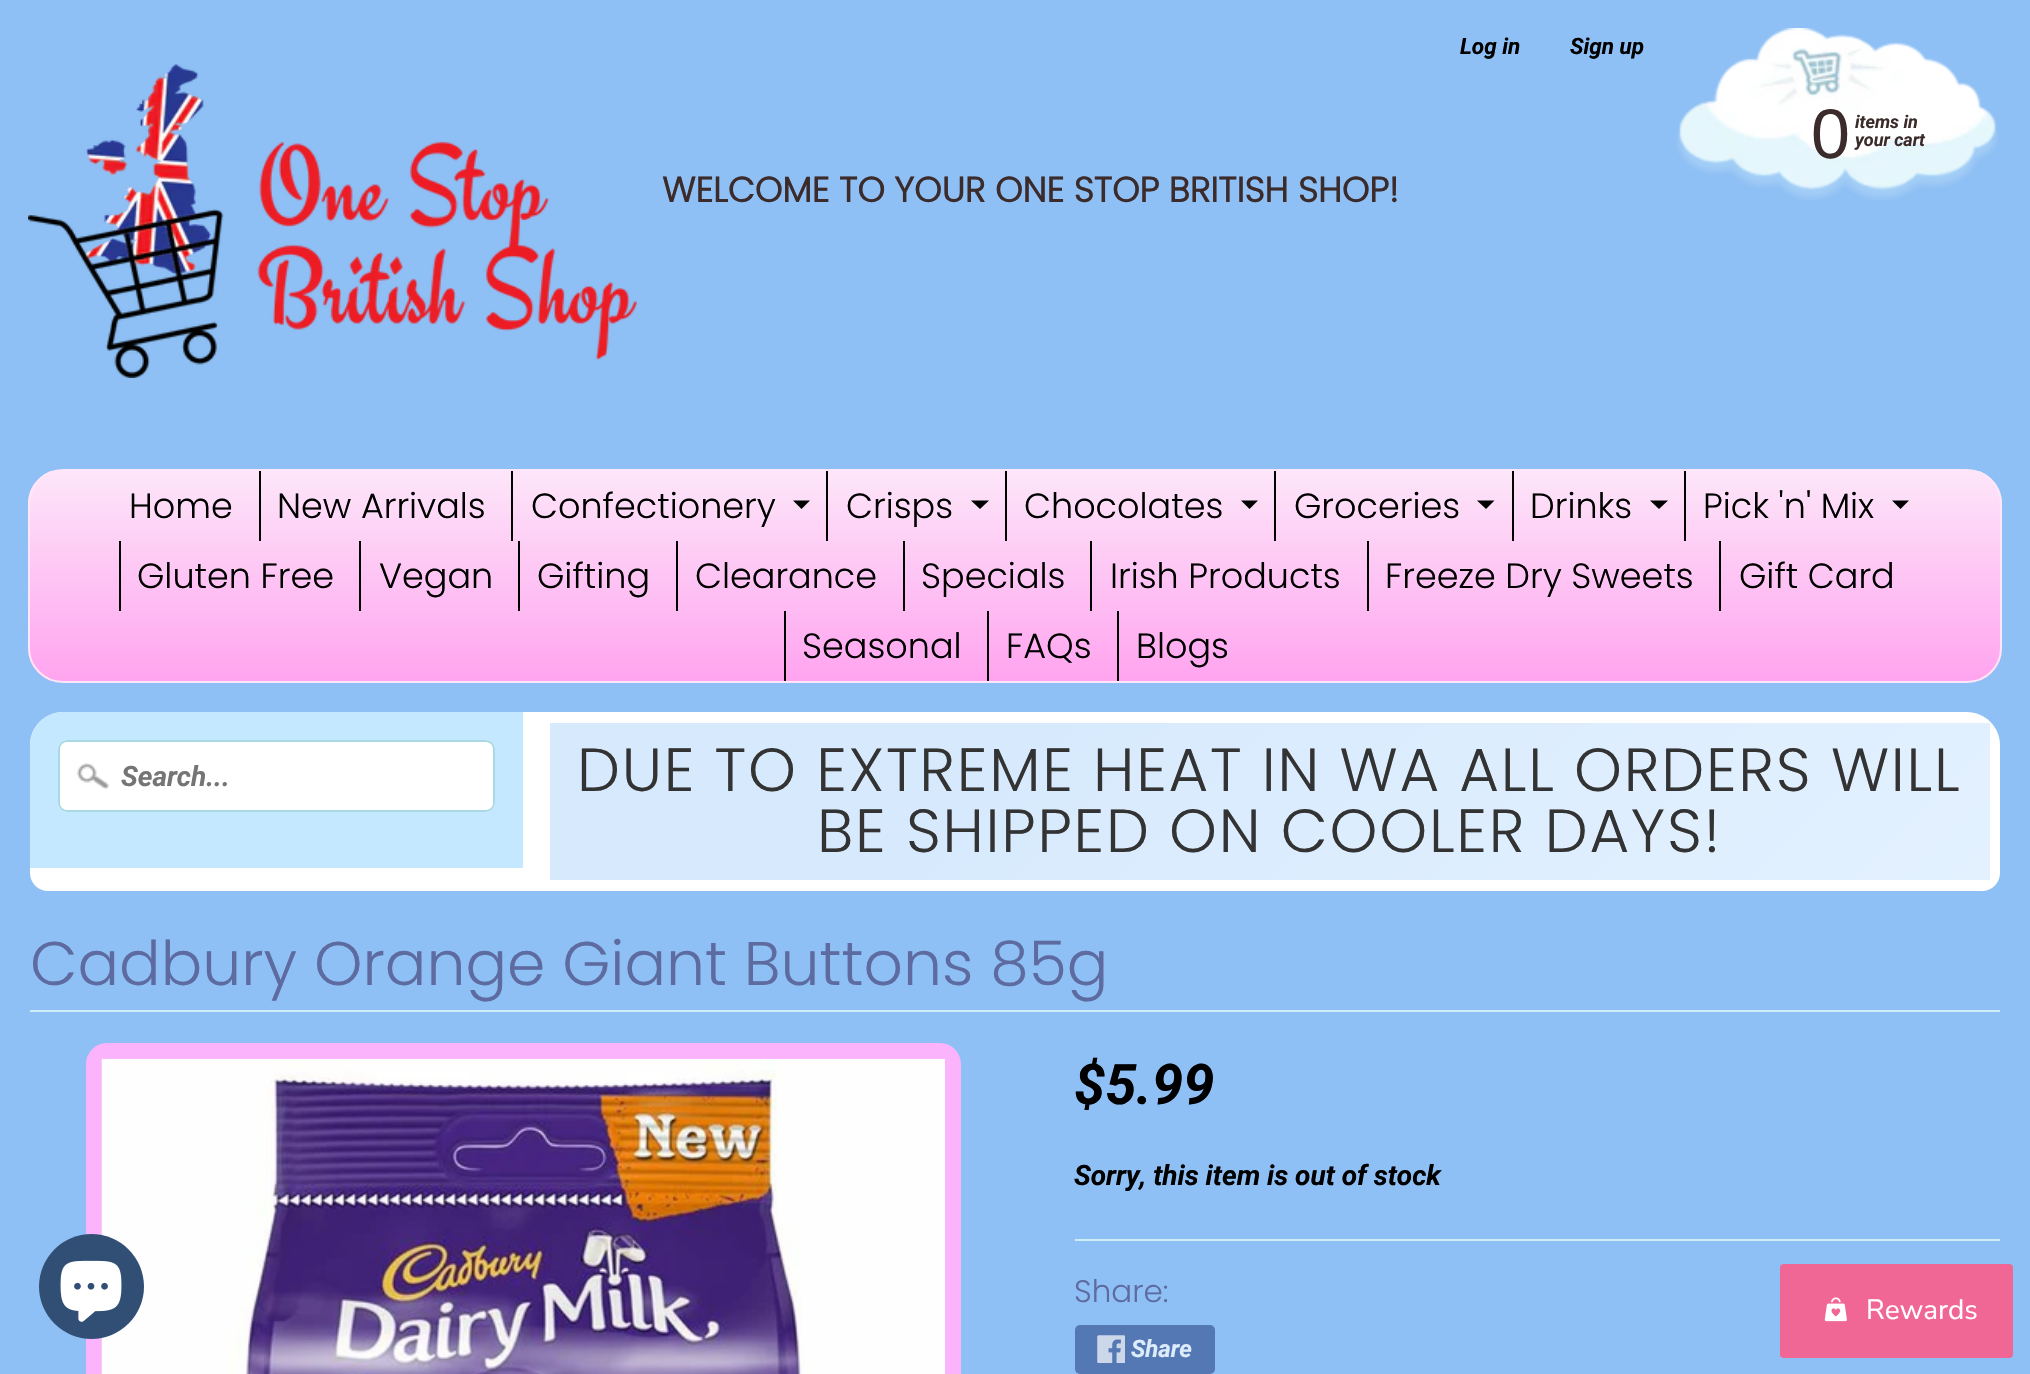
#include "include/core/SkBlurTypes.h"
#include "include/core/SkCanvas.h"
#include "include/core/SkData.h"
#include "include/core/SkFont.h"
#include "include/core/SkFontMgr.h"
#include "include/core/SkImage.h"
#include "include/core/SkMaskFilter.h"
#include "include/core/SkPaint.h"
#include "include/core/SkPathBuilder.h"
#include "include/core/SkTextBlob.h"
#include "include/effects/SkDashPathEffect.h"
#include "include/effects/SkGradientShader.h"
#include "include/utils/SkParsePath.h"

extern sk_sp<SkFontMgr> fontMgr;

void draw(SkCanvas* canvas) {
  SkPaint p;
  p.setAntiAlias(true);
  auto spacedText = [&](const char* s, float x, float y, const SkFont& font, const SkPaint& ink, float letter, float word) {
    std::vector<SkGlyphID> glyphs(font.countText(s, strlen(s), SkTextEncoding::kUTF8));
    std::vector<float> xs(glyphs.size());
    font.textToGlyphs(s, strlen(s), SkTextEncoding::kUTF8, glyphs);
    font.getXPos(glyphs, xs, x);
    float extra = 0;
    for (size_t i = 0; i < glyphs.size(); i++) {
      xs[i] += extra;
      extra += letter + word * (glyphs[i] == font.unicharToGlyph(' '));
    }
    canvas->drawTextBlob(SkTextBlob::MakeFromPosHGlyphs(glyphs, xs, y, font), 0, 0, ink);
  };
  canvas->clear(SkColorSetRGB(142, 192, 245));
  canvas->drawImageRect(SkImages::DeferredFromEncodedData(SkData::MakeFromFileName("images/1.png")), SkRect::MakeLTRB(1676, 28, 1998, 200), SkSamplingOptions());
  canvas->drawImageRect(SkImages::DeferredFromEncodedData(SkData::MakeFromFileName("images/2.png")), SkRect::MakeLTRB(28, 64, 637, 378), SkSamplingOptions());
  canvas->save();
  canvas->clipPath(SkPathBuilder().moveTo(63, 469).lineTo(1967, 469).cubicTo(1986.5f, 469, 2002, 484.5f, 2002, 504).lineTo(2002, 648).cubicTo(2002, 667.5f, 1986.5f, 683, 1967, 683).lineTo(63, 683).cubicTo(43.5f, 683, 28, 667.5f, 28, 648).lineTo(28, 504).cubicTo(28, 484.5f, 43.5f, 469, 63, 469).close().detach(), true);
  {
    const SkColor colors[] = {SkColorSetRGB(253, 230, 249), SkColorSetRGB(255, 164, 239)};
    const float stops[] = {0, 1};
    const SkPoint ends[] = {{1015, 471}, {1015, 681}};
    p.setShader(SkGradientShader::MakeLinear(ends, colors, stops, 2, SkTileMode::kClamp));
    p.setAlpha(255);
  }
  canvas->drawRect(SkRect::MakeLTRB(28, 471, 2002, 681), p);
  canvas->restore();
  p.setStyle(SkPaint::kStroke_Style);
  p.setStrokeWidth(2);
  p.setShader(nullptr);
  p.setColor(SkColorSetRGB(253, 230, 249));
  canvas->drawRoundRect(SkRect::MakeLTRB(29, 470, 2001, 682), 34, 34, p);
  p.setStyle(SkPaint::kFill_Style);
  p.setColor(SK_ColorBLACK);
  canvas->drawRect(SkRect::MakeLTRB(259, 471, 261, 541), p);
  canvas->drawRect(SkRect::MakeLTRB(511, 471, 513, 541), p);
  canvas->drawPath(SkPathBuilder().moveTo(793, 500.5f).lineTo(810, 500.5f).lineTo(801.5f, 509).close().detach(), p);
  canvas->drawRect(SkRect::MakeLTRB(826, 471, 828, 541), p);
  canvas->drawPath(SkPathBuilder().moveTo(971, 500.5f).lineTo(989, 500.5f).lineTo(980, 509).close().detach(), p);
  canvas->drawRect(SkRect::MakeLTRB(1005, 471, 1007, 541), p);
  canvas->drawPath(SkPathBuilder().moveTo(1241, 500.5f).lineTo(1258, 500.5f).lineTo(1249.5f, 509).close().detach(), p);
  canvas->drawRect(SkRect::MakeLTRB(1274, 471, 1276, 541), p);
  canvas->drawPath(SkPathBuilder().moveTo(1477, 500.5f).lineTo(1494.5f, 500.5f).lineTo(1486, 509).close().detach(), p);
  canvas->drawRect(SkRect::MakeLTRB(1512, 471, 1514, 541), p);
  canvas->drawPath(SkPathBuilder().moveTo(1650, 500.5f).lineTo(1668, 500.5f).lineTo(1659, 509).close().detach(), p);
  canvas->drawRect(SkRect::MakeLTRB(1684, 471, 1686, 541), p);
  canvas->drawPath(SkPathBuilder().moveTo(1892, 500.5f).lineTo(1909, 500.5f).lineTo(1900.5f, 509).close().detach(), p);
  canvas->drawRect(SkRect::MakeLTRB(119, 541, 121, 611), p);
  canvas->drawRect(SkRect::MakeLTRB(359, 541, 361, 611), p);
  canvas->drawRect(SkRect::MakeLTRB(518, 541, 520, 611), p);
  canvas->drawRect(SkRect::MakeLTRB(676, 541, 678, 611), p);
  canvas->drawRect(SkRect::MakeLTRB(903, 541, 905, 611), p);
  canvas->drawRect(SkRect::MakeLTRB(1090, 541, 1092, 611), p);
  canvas->drawRect(SkRect::MakeLTRB(1367, 541, 1369, 611), p);
  canvas->drawRect(SkRect::MakeLTRB(1719, 541, 1721, 611), p);
  canvas->drawRect(SkRect::MakeLTRB(784, 611, 786, 681), p);
  canvas->drawRect(SkRect::MakeLTRB(987, 611, 989, 681), p);
  canvas->drawRect(SkRect::MakeLTRB(1117, 611, 1119, 681), p);
  p.setColor(SK_ColorWHITE);
  canvas->drawPath(SkPathBuilder().moveTo(63, 712).lineTo(1967, 712).cubicTo(1985, 712, 2000, 727, 2000, 745).lineTo(2000, 873).cubicTo(2000, 883, 1992, 891, 1982, 891).lineTo(48, 891).cubicTo(38, 891, 30, 883, 30, 873).lineTo(30, 745).cubicTo(30, 727, 45, 712, 63, 712).close().detach(), p);
  p.setColor(SkColorSetRGB(196, 232, 255));
  canvas->drawPath(SkPathBuilder().moveTo(63, 712).lineTo(523, 712).lineTo(523, 868).lineTo(30, 868).lineTo(30, 745).cubicTo(30, 727, 45, 712, 63, 712).close().detach(), p);
  p.setColor(SK_ColorWHITE);
  canvas->drawRoundRect(SkRect::MakeLTRB(58, 740, 495, 812), 9, 9, p);
  canvas->drawImageRect(SkImages::DeferredFromEncodedData(SkData::MakeFromFileName("images/3.png")), SkRect::MakeLTRB(77, 763, 109, 790), SkSamplingOptions());
  p.setStyle(SkPaint::kStroke_Style);
  p.setColor(SkColorSetRGB(170, 217, 230));
  canvas->drawRoundRect(SkRect::MakeLTRB(59, 741, 494, 811), 8, 8, p);
  p.setStyle(SkPaint::kFill_Style);
  {
    const SkColor colors[] = {SkColorSetRGB(215, 234, 253), SkColorSetRGB(227, 241, 255)};
    const float stops[] = {0.3f, 1};
    const SkPoint ends[] = {{870, 402}, {1669, 1201}};
    p.setShader(SkGradientShader::MakeLinear(ends, colors, stops, 2, SkTileMode::kClamp));
    p.setAlpha(255);
  }
  canvas->drawRect(SkRect::MakeLTRB(550, 723, 1990, 880), p);
  p.setShader(nullptr);
  p.setColor(SkColorSetRGB(206, 237, 245));
  canvas->drawRect(SkRect::MakeLTRB(30, 1010, 2000, 1012), p);
  p.setColor(SkColorSetRGB(251, 179, 252));
  canvas->drawRoundRect(SkRect::MakeLTRB(86, 1043, 961, 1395), 21, 21, p);
  canvas->drawImageRect(SkImages::DeferredFromEncodedData(SkData::MakeFromFileName("images/4.png")), SkRect::MakeLTRB(101, 1058, 945, 1374), SkSamplingOptions());
  p.setColor(SkColorSetRGB(206, 237, 245));
  canvas->drawRect(SkRect::MakeLTRB(1075, 1239, 2000, 1241), p);
  p.setColor(SkColorSetRGB(84, 120, 180));
  canvas->drawRoundRect(SkRect::MakeLTRB(1075, 1325, 1215, 1374), 5, 5, p);
  canvas->drawImageRect(SkImages::DeferredFromEncodedData(SkData::MakeFromFileName("images/5.png")), SkRect::MakeLTRB(1097, 1335, 1125, 1363), SkSamplingOptions());
  p.setColor(SkColorSetRGB(49, 79, 117));
  canvas->drawCircle(91.5f, 1286.5f, 52.5f, p);
  canvas->drawImageRect(SkImages::DeferredFromEncodedData(SkData::MakeFromFileName("images/6.png")), SkRect::MakeLTRB(60, 1260, 122, 1322), SkSamplingOptions());
  p.setColor(SkColorSetRGB(240, 103, 149));
  canvas->drawRoundRect(SkRect::MakeLTRB(1780, 1264, 2013, 1358), 4, 4, p);
  canvas->drawImageRect(SkImages::DeferredFromEncodedData(SkData::MakeFromFileName("images/7.png")), SkRect::MakeLTRB(1824, 1297, 1847, 1322), SkSamplingOptions());
  SkFont font1(fontMgr->matchFamilyStyle("Roboto", SkFontStyle::BoldItalic()), 22.5f);
  font1.setSubpixel(true);
  p.setColor(SK_ColorBLACK);
  canvas->drawString("Log in", 1460, 54, font1, p);
  canvas->drawString("Sign up", 1570, 54, font1, p);
  SkFont font2(fontMgr->matchFamilyStyle("Liberation Sans", SkFontStyle::Normal()), 70);
  font2.setSubpixel(true);
  p.setColor(SkColorSetRGB(60, 43, 43));
  canvas->drawString("0", 1811, 158, font2, p);
  SkFont font3(fontMgr->matchFamilyStyle("Roboto", SkFontStyle::BoldItalic()), 18);
  font3.setSubpixel(true);
  canvas->drawString("items in", 1855, 128, font3, p);
  canvas->drawString("your cart", 1855, 146, font3, p);
  SkFont font4(fontMgr->matchFamilyStyle("Poppins", SkFontStyle::Bold()), 35);
  font4.setSubpixel(true);
  canvas->drawString("WELCOME TO YOUR ONE STOP BRITISH SHOP!", 662, 202, font4, p);
  SkFont font5(fontMgr->matchFamilyStyle("Poppins", SkFontStyle(300, SkFontStyle::kNormal_Width, SkFontStyle::kUpright_Slant)), 35);
  font5.setSubpixel(true);
  p.setColor(SK_ColorBLACK);
  canvas->drawString("Home", 129, 518, font5, p);
  canvas->drawString("New Arrivals", 277, 518, font5, p);
  canvas->drawString("Confectionery", 531, 518, font5, p);
  canvas->drawString("Crisps", 846, 518, font5, p);
  canvas->drawString("Chocolates", 1024, 518, font5, p);
  canvas->drawString("Groceries", 1294, 518, font5, p);
  canvas->drawString("Drinks", 1530, 518, font5, p);
  canvas->drawString("Pick 'n' Mix", 1703, 518, font5, p);
  canvas->drawString("Gluten Free", 137, 588, font5, p);
  canvas->drawString("Vegan", 379, 588, font5, p);
  canvas->drawString("Gifting", 537, 588, font5, p);
  canvas->drawString("Clearance", 695, 588, font5, p);
  canvas->drawString("Specials", 921, 588, font5, p);
  canvas->drawString("Irish Products", 1110, 588, font5, p);
  canvas->drawString("Freeze Dry Sweets", 1385, 588, font5, p);
  canvas->drawString("Gift Card", 1739, 588, font5, p);
  canvas->drawString("Seasonal", 802, 658, font5, p);
  canvas->drawString("FAQs", 1006, 658, font5, p);
  canvas->drawString("Blogs", 1136, 658, font5, p);
  SkFont font6(fontMgr->matchFamilyStyle("Roboto", SkFontStyle::BoldItalic()), 28);
  font6.setSubpixel(true);
  p.setColor(SkColorSetRGB(117, 117, 117));
  canvas->drawString("Search...", 121, 786, font6, p);
  SkFont font7(fontMgr->matchFamilyStyle("Poppins", SkFontStyle(300, SkFontStyle::kNormal_Width, SkFontStyle::kUpright_Slant)), 60.9f);
  font7.setSubpixel(true);
  p.setColor(SkColorSetRGB(51, 51, 51));
  spacedText("DUE TO EXTREME HEAT IN WA ALL ORDERS WILL", 577, 791, font7, p, 1.75f, 0);
  spacedText("BE SHIPPED ON COOLER DAYS!", 817, 852, font7, p, 1.75f, 0);
  SkFont font8(fontMgr->matchFamilyStyle("Poppins", SkFontStyle(300, SkFontStyle::kNormal_Width, SkFontStyle::kUpright_Slant)), 61.6f);
  font8.setSubpixel(true);
  p.setColor(SkColorSetRGB(93, 107, 160));
  canvas->drawString("Cadbury Orange Giant Buttons 85g", 30, 985, font8, p);
  SkFont font9(fontMgr->matchFamilyStyle("Roboto", SkFontStyle::BoldItalic()), 56);
  font9.setSubpixel(true);
  p.setColor(SK_ColorBLACK);
  canvas->drawString("$5.99", 1074, 1104, font9, p);
  canvas->drawString("Sorry, this item is out of stock", 1074, 1185, font6, p);
  SkFont font10(fontMgr->matchFamilyStyle("Poppins", SkFontStyle(300, SkFontStyle::kNormal_Width, SkFontStyle::kUpright_Slant)), 31);
  font10.setSubpixel(true);
  p.setColor(SkColorSetRGB(93, 107, 160));
  canvas->drawString("Share:", 1074, 1302, font10, p);
  SkFont font11(fontMgr->matchFamilyStyle("Roboto", SkFontStyle::BoldItalic()), 24);
  font11.setSubpixel(true);
  p.setColor(SkColorSetRGB(221, 236, 252));
  canvas->drawString("Share", 1131, 1357, font11, p);
  SkFont font12(fontMgr->matchFamilyStyle("Nunito Sans", SkFontStyle(200, SkFontStyle::kNormal_Width, SkFontStyle::kUpright_Slant)), 28);
  font12.setSubpixel(true);
  p.setColor(SK_ColorWHITE);
  canvas->drawString("Rewards", 1866, 1319, font12, p);
}
